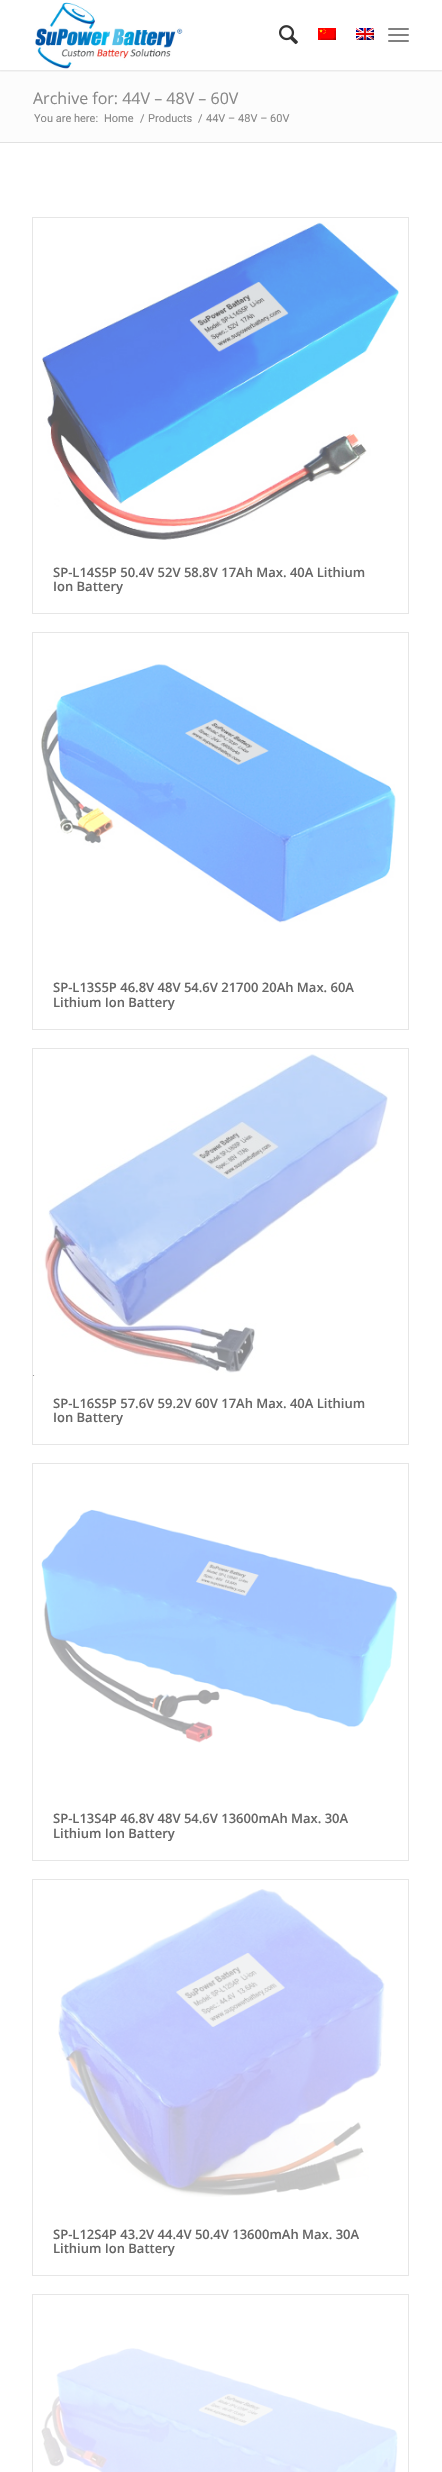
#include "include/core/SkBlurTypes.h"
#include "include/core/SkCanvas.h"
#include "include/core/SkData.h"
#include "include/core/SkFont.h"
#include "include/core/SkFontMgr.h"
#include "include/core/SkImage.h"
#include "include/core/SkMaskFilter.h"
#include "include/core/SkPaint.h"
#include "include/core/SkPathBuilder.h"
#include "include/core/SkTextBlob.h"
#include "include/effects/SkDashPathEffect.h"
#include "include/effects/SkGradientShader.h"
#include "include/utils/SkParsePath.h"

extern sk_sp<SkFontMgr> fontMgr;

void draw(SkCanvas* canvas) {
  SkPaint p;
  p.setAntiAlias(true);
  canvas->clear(SK_ColorWHITE);
  p.setColor(SkColorSetRGB(252, 252, 252));
  canvas->drawRect(SkRect::MakeLTRB(0, 70, 442, 142), p);
  canvas->save();
  canvas->clipRect(SkRect::MakeLTRB(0, 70, 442, 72));
  p.setColor(SkColorSetARGB(26, 0, 0, 0));
  p.setMaskFilter(SkMaskFilter::MakeBlur(kNormal_SkBlurStyle, 1));
  canvas->drawRect(SkRect::MakeLTRB(-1, -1, 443, 71), p);
  p.setMaskFilter(nullptr);
  canvas->restore();
  canvas->drawImageRect(SkImages::DeferredFromEncodedData(SkData::MakeFromFileName("images/1.png")), SkRect::MakeLTRB(35, 2, 183, 69), SkSamplingOptions());
  canvas->drawImageRect(SkImages::DeferredFromEncodedData(SkData::MakeFromFileName("images/2.png")), SkRect::MakeLTRB(279, 25, 298, 45), SkSamplingOptions());
  canvas->drawImageRect(SkImages::DeferredFromEncodedData(SkData::MakeFromFileName("images/3.png")), SkRect::MakeLTRB(318, 28, 336, 40), SkSamplingOptions());
  canvas->drawImageRect(SkImages::DeferredFromEncodedData(SkData::MakeFromFileName("images/4.png")), SkRect::MakeLTRB(356, 28, 374, 40), SkSamplingOptions());
  p.setColor(SkColorSetRGB(128, 128, 128));
  canvas->drawRoundRect(SkRect::MakeLTRB(388, 34, 409, 36), 1, 1, p);
  canvas->drawRoundRect(SkRect::MakeLTRB(388, 28, 409, 30), 1, 1, p);
  canvas->drawRoundRect(SkRect::MakeLTRB(388, 40, 409, 42), 1, 1, p);
  p.setColor(SkColorSetRGB(225, 225, 225));
  canvas->drawRect(SkRect::MakeLTRB(0, 142, 442, 143), p);
  p.setStyle(SkPaint::kStroke_Style);
  p.setStrokeWidth(1);
  p.setColor(SkColorSetRGB(230, 230, 230));
  canvas->drawRect(SkRect::MakeLTRB(32.5f, 217.5f, 408.5f, 613.5f), p);
  canvas->drawImageRect(SkImages::DeferredFromEncodedData(SkData::MakeFromFileName("images/5.png")), SkRect::MakeLTRB(42, 222, 399, 540), SkSamplingOptions());
  canvas->drawRect(SkRect::MakeLTRB(32.5f, 632.5f, 408.5f, 1029.5f), p);
  canvas->drawImageRect(SkImages::DeferredFromEncodedData(SkData::MakeFromFileName("images/6.png")), SkRect::MakeLTRB(41, 664, 396, 923), SkSamplingOptions());
  canvas->drawRect(SkRect::MakeLTRB(32.5f, 1048.5f, 408.5f, 1444.5f), p);
  canvas->drawImageRect(SkImages::DeferredFromEncodedData(SkData::MakeFromFileName("images/7.png")), SkRect::MakeLTRB(33, 1054, 388, 1376), SkSamplingOptions());
  canvas->drawRect(SkRect::MakeLTRB(32.5f, 1463.5f, 408.5f, 1860.5f), p);
  canvas->drawImageRect(SkImages::DeferredFromEncodedData(SkData::MakeFromFileName("images/8.png")), SkRect::MakeLTRB(41, 1509, 398, 1743), SkSamplingOptions());
  canvas->drawRect(SkRect::MakeLTRB(32.5f, 1879.5f, 408.5f, 2275.5f), p);
  canvas->drawImageRect(SkImages::DeferredFromEncodedData(SkData::MakeFromFileName("images/9.png")), SkRect::MakeLTRB(58, 1889, 385, 2197), SkSamplingOptions());
  canvas->drawRect(SkRect::MakeLTRB(32.5f, 2294.5f, 408.5f, 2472.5f), p);
  canvas->drawImageRect(SkImages::DeferredFromEncodedData(SkData::MakeFromFileName("images/10.png")), SkRect::MakeLTRB(41, 2348, 398, 2472), SkSamplingOptions());
  SkFont font1(fontMgr->matchFamilyStyle("Open Sans", SkFontStyle::Normal()), 16);
  font1.setSubpixel(true);
  p.setStyle(SkPaint::kFill_Style);
  p.setColor(SkColorSetRGB(136, 136, 136));
  canvas->drawString("Archive for: 44V – 48V – 60V", 33, 104, font1, p);
  SkFont font2(fontMgr->matchFamilyStyle("Roboto", SkFontStyle::Normal()), 11);
  font2.setSubpixel(true);
  canvas->drawString("You are here:", 34, 122, font2, p);
  canvas->drawString("Home", 104, 122, font2, p);
  canvas->drawString("/", 140, 122, font2, p);
  canvas->drawString("Products", 148, 122, font2, p);
  canvas->drawString("/", 198, 122, font2, p);
  canvas->drawString("44V – 48V – 60V", 206, 122, font2, p);
  SkFont font3(fontMgr->matchFamilyStyle("Open Sans", SkFontStyle(600, SkFontStyle::kNormal_Width, SkFontStyle::kUpright_Slant)), 13);
  font3.setSubpixel(true);
  p.setColor(SkColorSetRGB(102, 102, 102));
  canvas->drawString("SP-L14S5P 50.4V 52V 58.8V 17Ah Max. 40A Lithium", 53, 577, font3, p);
  canvas->drawString("Ion Battery", 53, 591, font3, p);
  canvas->drawString("SP-L13S5P 46.8V 48V 54.6V 21700 20Ah Max. 60A", 53, 992, font3, p);
  canvas->drawString("Lithium Ion Battery", 53, 1007, font3, p);
  canvas->drawString("SP-L16S5P 57.6V 59.2V 60V 17Ah Max. 40A Lithium", 53, 1408, font3, p);
  canvas->drawString("Ion Battery", 53, 1422, font3, p);
  canvas->drawString("SP-L13S4P 46.8V 48V 54.6V 13600mAh Max. 30A", 53, 1823, font3, p);
  canvas->drawString("Lithium Ion Battery", 53, 1838, font3, p);
  canvas->drawString("SP-L12S4P 43.2V 44.4V 50.4V 13600mAh Max. 30A", 53, 2239, font3, p);
  canvas->drawString("Lithium Ion Battery", 53, 2253, font3, p);
}
